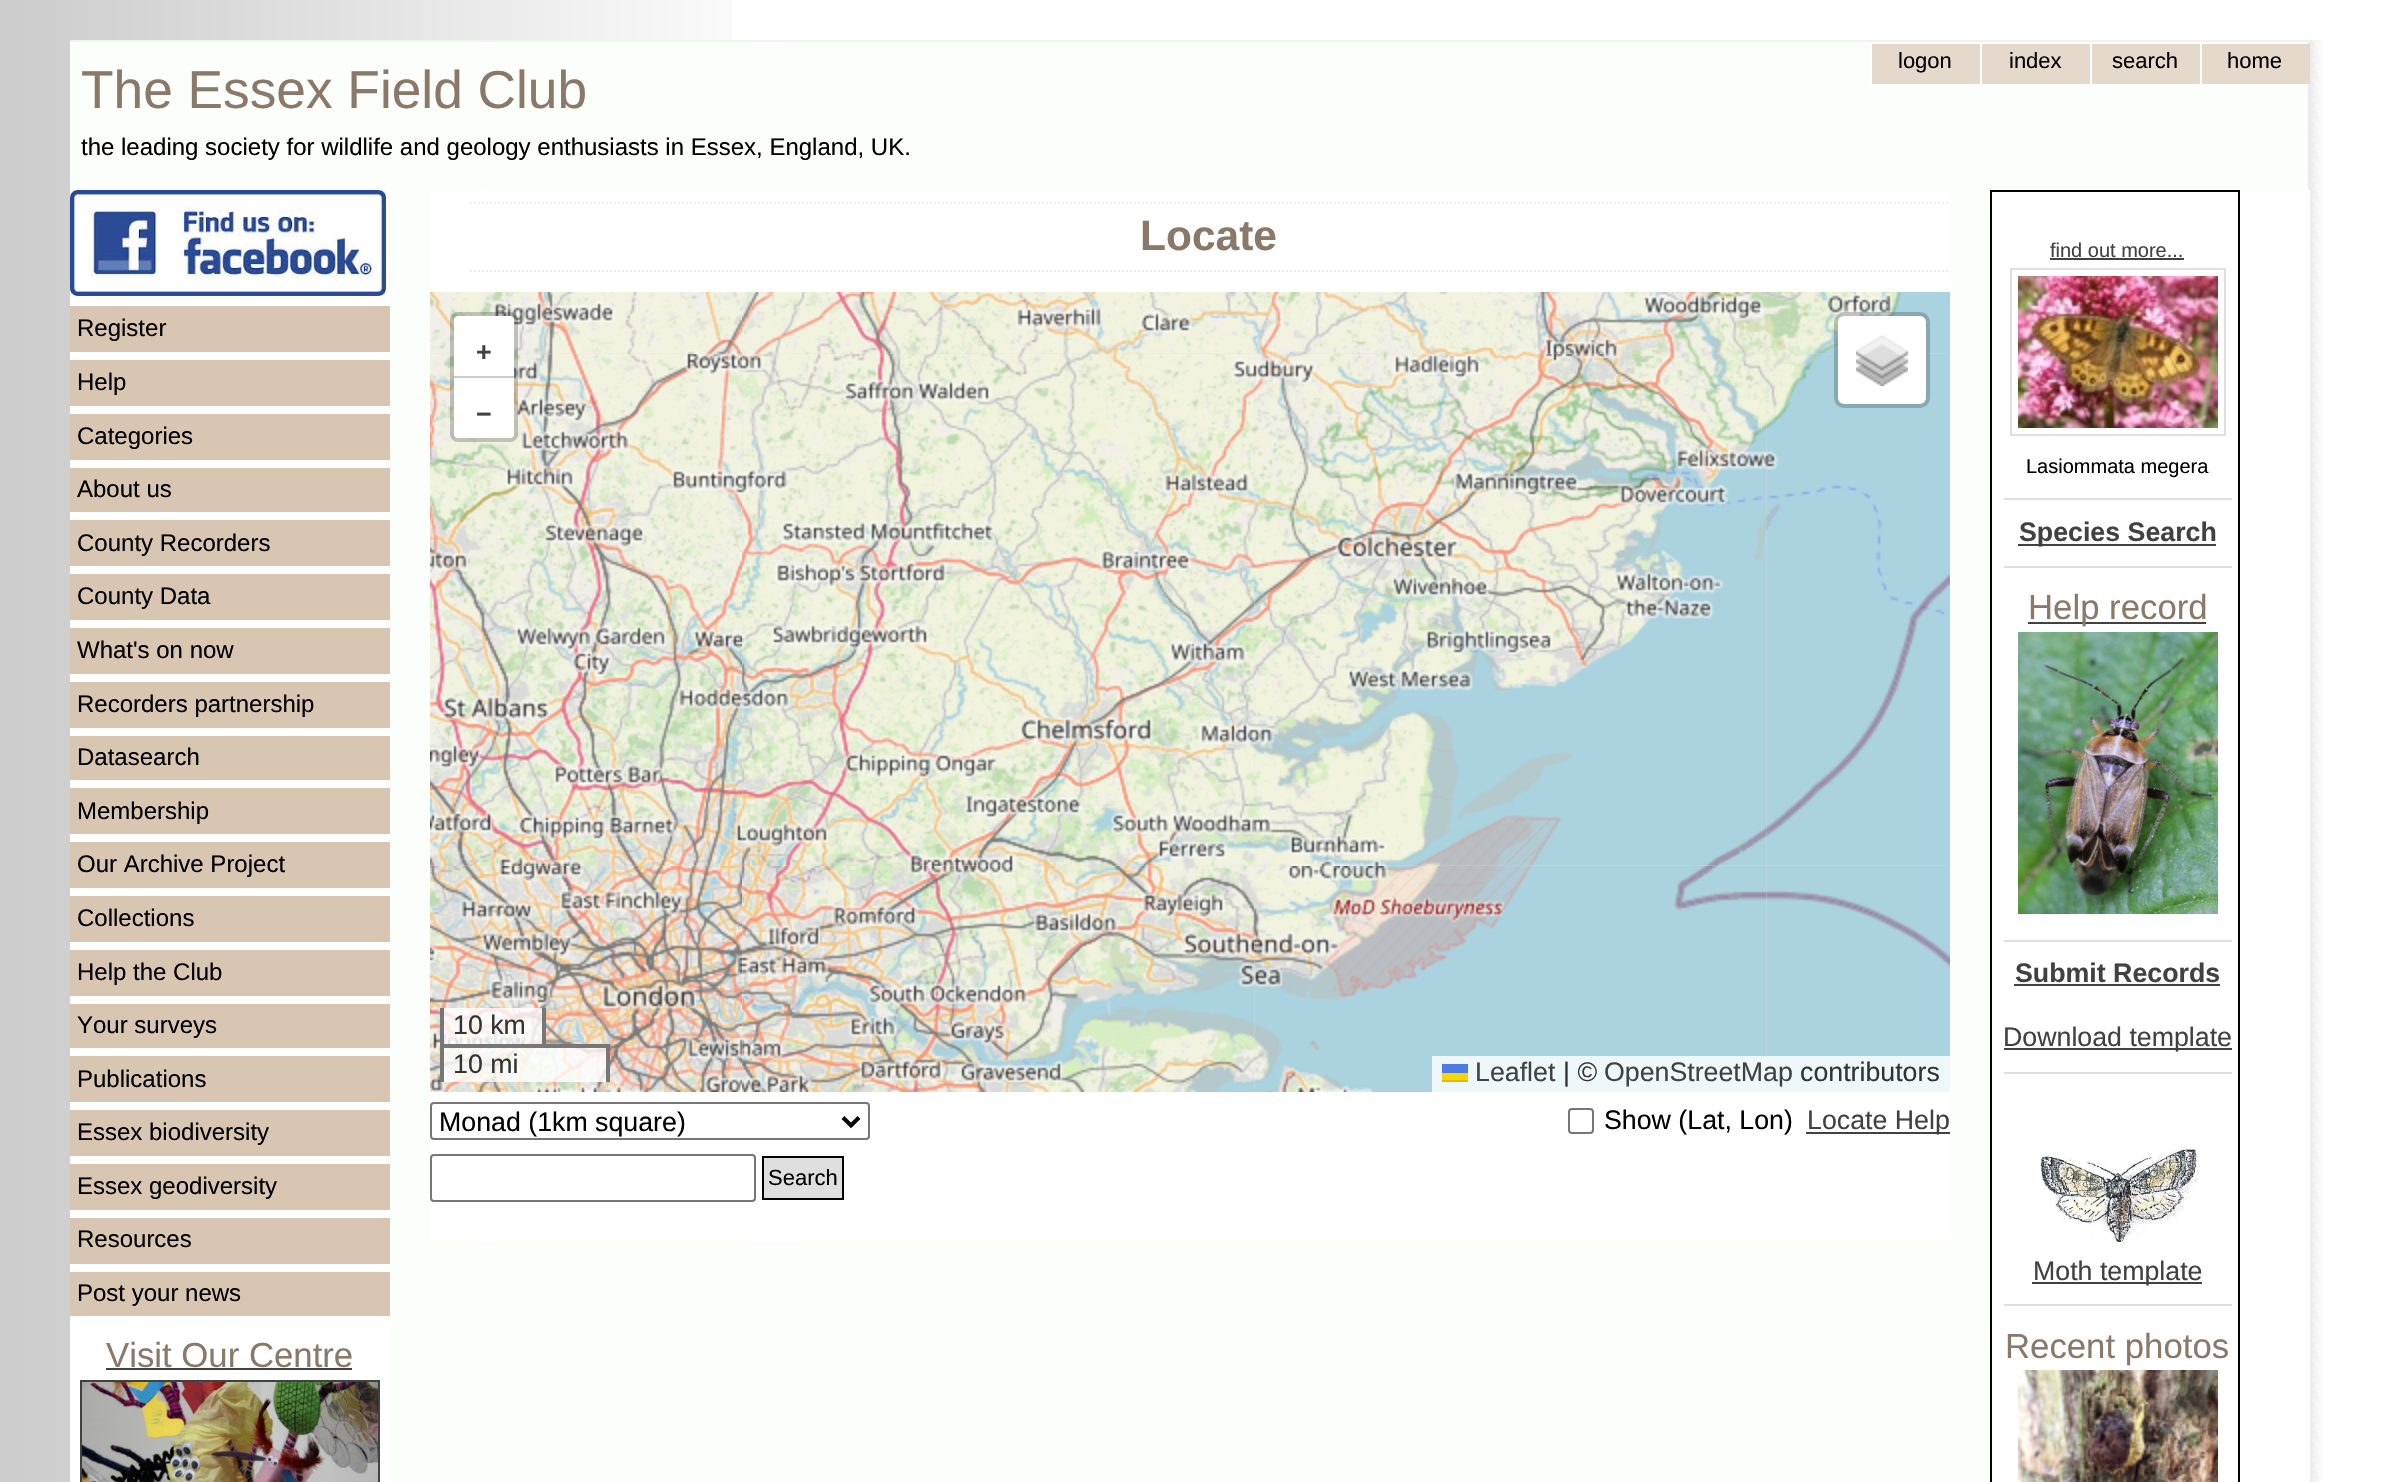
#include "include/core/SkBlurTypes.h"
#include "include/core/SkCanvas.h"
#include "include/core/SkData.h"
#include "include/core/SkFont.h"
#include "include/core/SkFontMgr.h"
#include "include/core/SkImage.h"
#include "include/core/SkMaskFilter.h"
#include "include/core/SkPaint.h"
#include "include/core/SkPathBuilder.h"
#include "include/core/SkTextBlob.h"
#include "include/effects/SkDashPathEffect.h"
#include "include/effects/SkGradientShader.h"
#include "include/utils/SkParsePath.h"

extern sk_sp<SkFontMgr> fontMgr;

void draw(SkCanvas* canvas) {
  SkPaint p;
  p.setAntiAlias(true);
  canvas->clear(SK_ColorWHITE);
  canvas->drawImageRect(SkImages::DeferredFromEncodedData(SkData::MakeFromFileName("images/1.png")), SkRect::MakeLTRB(0, 0, 732, 1482), SkSamplingOptions());
  canvas->drawImageRect(SkImages::DeferredFromEncodedData(SkData::MakeFromFileName("images/2.png")), SkRect::MakeLTRB(70, 40, 2322, 1482), SkSamplingOptions());
  p.setColor(SkColorSetRGB(242, 242, 242));
  canvas->drawRect(SkRect::MakeLTRB(70, 40, 2310, 42), p);
  p.setColor(SkColorSetRGB(229, 217, 204));
  canvas->drawRect(SkRect::MakeLTRB(1872, 44, 1980, 84), p);
  p.setColor(SK_ColorWHITE);
  canvas->drawRect(SkRect::MakeLTRB(1870, 44, 1872, 84), p);
  p.setColor(SkColorSetRGB(229, 217, 204));
  canvas->drawRect(SkRect::MakeLTRB(1982, 44, 2090, 84), p);
  p.setColor(SK_ColorWHITE);
  canvas->drawRect(SkRect::MakeLTRB(1980, 44, 1982, 84), p);
  p.setColor(SkColorSetRGB(229, 217, 204));
  canvas->drawRect(SkRect::MakeLTRB(2092, 44, 2200, 84), p);
  p.setColor(SK_ColorWHITE);
  canvas->drawRect(SkRect::MakeLTRB(2090, 44, 2092, 84), p);
  p.setColor(SkColorSetRGB(229, 217, 204));
  canvas->drawRect(SkRect::MakeLTRB(2202, 44, 2310, 84), p);
  p.setColor(SK_ColorWHITE);
  canvas->drawRect(SkRect::MakeLTRB(2200, 44, 2202, 84), p);
  canvas->drawRect(SkRect::MakeLTRB(70, 190, 390, 1482), p);
  canvas->drawImageRect(SkImages::DeferredFromEncodedData(SkData::MakeFromFileName("images/3.png")), SkRect::MakeLTRB(70, 190, 386, 296), SkSamplingOptions());
  p.setColor(SkColorSetRGB(216, 198, 178));
  canvas->drawRect(SkRect::MakeLTRB(70, 306, 390, 352), p);
  canvas->drawRect(SkRect::MakeLTRB(70, 360, 390, 406), p);
  canvas->drawRect(SkRect::MakeLTRB(70, 414, 390, 460), p);
  canvas->drawRect(SkRect::MakeLTRB(70, 468, 390, 512), p);
  canvas->drawRect(SkRect::MakeLTRB(70, 520, 390, 566), p);
  canvas->drawRect(SkRect::MakeLTRB(70, 574, 390, 620), p);
  canvas->drawRect(SkRect::MakeLTRB(70, 628, 390, 674), p);
  canvas->drawRect(SkRect::MakeLTRB(70, 682, 390, 728), p);
  canvas->drawRect(SkRect::MakeLTRB(70, 736, 390, 780), p);
  canvas->drawRect(SkRect::MakeLTRB(70, 788, 390, 834), p);
  canvas->drawRect(SkRect::MakeLTRB(70, 842, 390, 888), p);
  canvas->drawRect(SkRect::MakeLTRB(70, 896, 390, 942), p);
  canvas->drawRect(SkRect::MakeLTRB(70, 950, 390, 996), p);
  canvas->drawRect(SkRect::MakeLTRB(70, 1004, 390, 1048), p);
  canvas->drawRect(SkRect::MakeLTRB(70, 1056, 390, 1102), p);
  canvas->drawRect(SkRect::MakeLTRB(70, 1110, 390, 1156), p);
  canvas->drawRect(SkRect::MakeLTRB(70, 1164, 390, 1210), p);
  canvas->drawRect(SkRect::MakeLTRB(70, 1218, 390, 1264), p);
  canvas->drawRect(SkRect::MakeLTRB(70, 1272, 390, 1316), p);
  p.setColor(SkColorSetRGB(65, 65, 65));
  canvas->drawRect(SkRect::MakeLTRB(106, 1368, 352, 1370), p);
  p.setStyle(SkPaint::kStroke_Style);
  p.setStrokeWidth(2);
  canvas->drawRect(SkRect::MakeLTRB(81, 1381, 379, 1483), p);
  canvas->drawImageRect(SkImages::DeferredFromEncodedData(SkData::MakeFromFileName("images/4.png")), SkRect::MakeLTRB(82, 1382, 378, 1482), SkSamplingOptions());
  p.setStyle(SkPaint::kFill_Style);
  p.setColor(SK_ColorWHITE);
  canvas->drawRect(SkRect::MakeLTRB(430, 190, 1950, 1242), p);
  p.setStyle(SkPaint::kStroke_Style);
  p.setColor(SkColorSetRGB(242, 236, 229));
  p.setPathEffect(SkDashPathEffect::Make({{2, 2}}, 0));
  canvas->drawPath(SkPathBuilder().moveTo(470, 203).lineTo(1950, 203).detach(), p);
  p.setPathEffect(nullptr);
  p.setPathEffect(SkDashPathEffect::Make({{2, 2}}, 0));
  canvas->drawPath(SkPathBuilder().moveTo(470, 271).lineTo(1950, 271).detach(), p);
  p.setPathEffect(nullptr);
  p.setStyle(SkPaint::kFill_Style);
  p.setColor(SkColorSetRGB(221, 221, 221));
  canvas->drawRect(SkRect::MakeLTRB(430, 292, 1950, 1092), p);
  canvas->drawImageRect(SkImages::DeferredFromEncodedData(SkData::MakeFromFileName("images/10.png")), SkRect::MakeLTRB(741, 354, 1254, 867), SkSamplingOptions());
  canvas->drawImageRect(SkImages::DeferredFromEncodedData(SkData::MakeFromFileName("images/11.png")), SkRect::MakeLTRB(1253, 354, 1766, 867), SkSamplingOptions());
  canvas->drawImageRect(SkImages::DeferredFromEncodedData(SkData::MakeFromFileName("images/6.png")), SkRect::MakeLTRB(741, 292, 1254, 355), SkSamplingOptions());
  canvas->drawImageRect(SkImages::DeferredFromEncodedData(SkData::MakeFromFileName("images/9.png")), SkRect::MakeLTRB(430, 354, 742, 866), SkSamplingOptions());
  canvas->drawImageRect(SkImages::DeferredFromEncodedData(SkData::MakeFromFileName("images/5.png")), SkRect::MakeLTRB(430, 292, 742, 355), SkSamplingOptions());
  canvas->drawImageRect(SkImages::DeferredFromEncodedData(SkData::MakeFromFileName("images/7.png")), SkRect::MakeLTRB(1253, 292, 1766, 355), SkSamplingOptions());
  canvas->drawImageRect(SkImages::DeferredFromEncodedData(SkData::MakeFromFileName("images/14.png")), SkRect::MakeLTRB(742, 866, 1254, 1092), SkSamplingOptions());
  canvas->drawImageRect(SkImages::DeferredFromEncodedData(SkData::MakeFromFileName("images/15.png")), SkRect::MakeLTRB(1253, 866, 1766, 1092), SkSamplingOptions());
  canvas->drawImageRect(SkImages::DeferredFromEncodedData(SkData::MakeFromFileName("images/12.png")), SkRect::MakeLTRB(1765, 354, 1950, 867), SkSamplingOptions());
  canvas->drawImageRect(SkImages::DeferredFromEncodedData(SkData::MakeFromFileName("images/8.png")), SkRect::MakeLTRB(1765, 292, 1950, 355), SkSamplingOptions());
  canvas->drawImageRect(SkImages::DeferredFromEncodedData(SkData::MakeFromFileName("images/13.png")), SkRect::MakeLTRB(430, 866, 742, 1092), SkSamplingOptions());
  canvas->drawImageRect(SkImages::DeferredFromEncodedData(SkData::MakeFromFileName("images/16.png")), SkRect::MakeLTRB(1766, 866, 1950, 1092), SkSamplingOptions());
  p.setStyle(SkPaint::kStroke_Style);
  p.setStrokeWidth(4);
  p.setColor(SkColorSetARGB(51, 0, 0, 0));
  canvas->drawRoundRect(SkRect::MakeLTRB(452, 314, 516, 440), 6, 6, p);
  p.setStyle(SkPaint::kFill_Style);
  p.setColor(SK_ColorWHITE);
  canvas->drawPath(SkPathBuilder().moveTo(458, 316).lineTo(510, 316).cubicTo(512, 316, 514, 318, 514, 320).lineTo(514, 378).lineTo(454, 378).lineTo(454, 320).cubicTo(454, 318, 456, 316, 458, 316).close().detach(), p);
  p.setColor(SkColorSetRGB(204, 204, 204));
  canvas->drawRect(SkRect::MakeLTRB(454, 376, 514, 378), p);
  p.setColor(SK_ColorWHITE);
  canvas->drawPath(SkPathBuilder().moveTo(454, 378).lineTo(514, 378).lineTo(514, 434).cubicTo(514, 436, 512, 438, 510, 438).lineTo(458, 438).cubicTo(456, 438, 454, 436, 454, 434).close().detach(), p);
  canvas->drawRoundRect(SkRect::MakeLTRB(1838, 316, 1926, 404), 6, 6, p);
  p.setStyle(SkPaint::kStroke_Style);
  p.setColor(SkColorSetARGB(51, 0, 0, 0));
  canvas->drawRoundRect(SkRect::MakeLTRB(1836, 314, 1928, 406), 8, 8, p);
  canvas->drawImageRect(SkImages::DeferredFromEncodedData(SkData::MakeFromFileName("images/17.png")), SkRect::MakeLTRB(1856, 335, 1908, 386), SkSamplingOptions());
  p.setStyle(SkPaint::kFill_Style);
  p.setColor(SkColorSetARGB(204, 255, 255, 255));
  canvas->drawRect(SkRect::MakeLTRB(444, 1008, 542, 1044), p);
  p.setColor(SkColorSetRGB(119, 119, 119));
  canvas->drawRect(SkRect::MakeLTRB(542, 1008, 546, 1048), p);
  canvas->drawRect(SkRect::MakeLTRB(440, 1008, 444, 1048), p);
  p.setColor(SkColorSetARGB(204, 255, 255, 255));
  canvas->drawRect(SkRect::MakeLTRB(444, 1048, 606, 1082), p);
  p.setColor(SkColorSetRGB(119, 119, 119));
  canvas->drawRect(SkRect::MakeLTRB(440, 1044, 610, 1048), p);
  canvas->drawRect(SkRect::MakeLTRB(606, 1044, 610, 1082), p);
  canvas->drawRect(SkRect::MakeLTRB(440, 1044, 444, 1082), p);
  p.setColor(SkColorSetARGB(204, 255, 255, 255));
  canvas->drawRect(SkRect::MakeLTRB(1432, 1056, 1950, 1092), p);
  p.setColor(SkColorSetRGB(76, 123, 225));
  canvas->drawRect(SkRect::MakeLTRB(1442, 1064, 1468, 1073), p);
  p.setColor(SkColorSetRGB(255, 213, 0));
  canvas->drawRect(SkRect::MakeLTRB(1442, 1073, 1468, 1080), p);
  p.setColor(SkColorSetRGB(224, 188, 0));
  canvas->drawRect(SkRect::MakeLTRB(1442, 1080, 1468, 1082), p);
  p.setStyle(SkPaint::kStroke_Style);
  p.setStrokeWidth(2);
  p.setColor(SkColorSetRGB(118, 118, 118));
  canvas->drawRoundRect(SkRect::MakeLTRB(431, 1103, 869, 1139), 3, 3, p);
  p.setStrokeWidth(4);
  p.setColor(SK_ColorBLACK);
  canvas->drawPath(SkPathBuilder().moveTo(843, 1117.5f).lineTo(851, 1125.5f).lineTo(859, 1117.5f).detach(), p);
  p.setStrokeWidth(2);
  p.setColor(SkColorSetRGB(118, 118, 118));
  canvas->drawRoundRect(SkRect::MakeLTRB(1569, 1109, 1593, 1133), 3, 3, p);
  p.setStyle(SkPaint::kFill_Style);
  p.setColor(SkColorSetRGB(65, 65, 65));
  canvas->drawRect(SkRect::MakeLTRB(1806, 1132, 1950, 1134), p);
  p.setStyle(SkPaint::kStroke_Style);
  p.setColor(SkColorSetRGB(118, 118, 118));
  canvas->drawRoundRect(SkRect::MakeLTRB(431, 1155, 755, 1201), 3, 3, p);
  p.setStyle(SkPaint::kFill_Style);
  p.setColor(SkColorSetRGB(223, 223, 223));
  canvas->drawRect(SkRect::MakeLTRB(763, 1157, 843, 1199), p);
  p.setStyle(SkPaint::kStroke_Style);
  p.setColor(SK_ColorBLACK);
  canvas->drawRect(SkRect::MakeLTRB(763, 1157, 843, 1199), p);
  p.setStyle(SkPaint::kFill_Style);
  p.setColor(SK_ColorWHITE);
  canvas->drawRect(SkRect::MakeLTRB(1992, 190, 2310, 1482), p);
  p.setStyle(SkPaint::kStroke_Style);
  p.setColor(SK_ColorBLACK);
  canvas->drawRect(SkRect::MakeLTRB(1991, 191, 2239, 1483), p);
  p.setStyle(SkPaint::kFill_Style);
  p.setColor(SkColorSetRGB(65, 65, 65));
  canvas->drawRect(SkRect::MakeLTRB(2050, 258, 2184, 260), p);
  p.setStyle(SkPaint::kStroke_Style);
  p.setColor(SkColorSetRGB(223, 223, 223));
  canvas->drawRect(SkRect::MakeLTRB(2011, 269, 2225, 435), p);
  canvas->drawImageRect(SkImages::DeferredFromEncodedData(SkData::MakeFromFileName("images/18.png")), SkRect::MakeLTRB(2018, 276, 2218, 428), SkSamplingOptions());
  p.setStyle(SkPaint::kFill_Style);
  canvas->drawRect(SkRect::MakeLTRB(2004, 498, 2232, 500), p);
  p.setColor(SkColorSetRGB(65, 65, 65));
  canvas->drawRect(SkRect::MakeLTRB(2018, 544, 2216, 546), p);
  p.setColor(SkColorSetRGB(223, 223, 223));
  canvas->drawRect(SkRect::MakeLTRB(2004, 566, 2232, 568), p);
  p.setColor(SkColorSetRGB(65, 65, 65));
  canvas->drawRect(SkRect::MakeLTRB(2028, 622, 2206, 624), p);
  canvas->drawImageRect(SkImages::DeferredFromEncodedData(SkData::MakeFromFileName("images/19.png")), SkRect::MakeLTRB(2018, 632, 2218, 914), SkSamplingOptions());
  p.setColor(SkColorSetRGB(223, 223, 223));
  canvas->drawRect(SkRect::MakeLTRB(2004, 940, 2232, 942), p);
  p.setColor(SkColorSetRGB(65, 65, 65));
  canvas->drawRect(SkRect::MakeLTRB(2014, 984, 2220, 986), p);
  canvas->drawRect(SkRect::MakeLTRB(2004, 1048, 2232, 1050), p);
  p.setColor(SkColorSetRGB(223, 223, 223));
  canvas->drawRect(SkRect::MakeLTRB(2004, 1072, 2232, 1074), p);
  canvas->drawImageRect(SkImages::DeferredFromEncodedData(SkData::MakeFromFileName("images/20.png")), SkRect::MakeLTRB(2040, 1148, 2198, 1242), SkSamplingOptions());
  p.setColor(SkColorSetRGB(65, 65, 65));
  canvas->drawRect(SkRect::MakeLTRB(2032, 1282, 2202, 1284), p);
  p.setColor(SkColorSetRGB(223, 223, 223));
  canvas->drawRect(SkRect::MakeLTRB(2004, 1304, 2232, 1306), p);
  canvas->drawImageRect(SkImages::DeferredFromEncodedData(SkData::MakeFromFileName("images/21.png")), SkRect::MakeLTRB(2018, 1370, 2218, 1482), SkSamplingOptions());
  SkFont font1(fontMgr->matchFamilyStyle("Liberation Sans", SkFontStyle::Normal()), 22);
  font1.setSubpixel(true);
  p.setColor(SK_ColorBLACK);
  canvas->drawString("logon", 1898, 68, font1, p);
  canvas->drawString("index", 2009, 68, font1, p);
  canvas->drawString("search", 2112, 68, font1, p);
  canvas->drawString("home", 2227, 68, font1, p);
  SkFont font2(fontMgr->matchFamilyStyle("Liberation Sans", SkFontStyle::Normal()), 53.25f);
  font2.setSubpixel(true);
  p.setColor(SkColorSetRGB(138, 121, 104));
  canvas->drawString("The Essex Field Club", 81, 108, font2, p);
  SkFont font3(fontMgr->matchFamilyStyle("Liberation Sans", SkFontStyle::Normal()), 24);
  font3.setSubpixel(true);
  p.setColor(SK_ColorBLACK);
  canvas->drawString("the leading society for wildlife and geology enthusiasts in Essex, England, UK.", 81, 155, font3, p);
  canvas->drawString("Register", 77, 336, font3, p);
  canvas->drawString("Help", 77, 390, font3, p);
  canvas->drawString("Categories", 77, 444, font3, p);
  canvas->drawString("About us", 77, 497, font3, p);
  canvas->drawString("County Recorders", 77, 551, font3, p);
  canvas->drawString("County Data", 77, 604, font3, p);
  canvas->drawString("What's on now", 77, 658, font3, p);
  canvas->drawString("Recorders partnership", 77, 712, font3, p);
  canvas->drawString("Datasearch", 77, 765, font3, p);
  canvas->drawString("Membership", 77, 819, font3, p);
  canvas->drawString("Our Archive Project", 77, 872, font3, p);
  canvas->drawString("Collections", 77, 926, font3, p);
  canvas->drawString("Help the Club", 77, 980, font3, p);
  canvas->drawString("Your surveys", 77, 1033, font3, p);
  canvas->drawString("Publications", 77, 1087, font3, p);
  canvas->drawString("Essex biodiversity", 77, 1140, font3, p);
  canvas->drawString("Essex geodiversity", 77, 1194, font3, p);
  canvas->drawString("Resources", 77, 1247, font3, p);
  canvas->drawString("Post your news", 77, 1301, font3, p);
  SkFont font4(fontMgr->matchFamilyStyle("Liberation Sans", SkFontStyle::Normal()), 34.75f);
  font4.setSubpixel(true);
  p.setColor(SkColorSetRGB(138, 121, 104));
  canvas->drawString("Visit Our Centre", 106, 1367, font4, p);
  SkFont font5(fontMgr->matchFamilyStyle("Liberation Sans", SkFontStyle::Bold()), 42.5f);
  font5.setSubpixel(true);
  canvas->drawString("Locate", 1140, 250, font5, p);
  SkFont font6(fontMgr->matchFamilyStyle("Liberation Sans", SkFontStyle::Bold()), 26.75f);
  font6.setSubpixel(true);
  p.setColor(SkColorSetRGB(65, 65, 65));
  canvas->drawString("+", 476, 361, font6, p);
  canvas->drawString("−", 476, 423, font6, p);
  SkFont font7(fontMgr->matchFamilyStyle("Liberation Sans", SkFontStyle::Normal()), 26.75f);
  font7.setSubpixel(true);
  p.setColor(SkColorSetRGB(51, 51, 51));
  canvas->drawString("10 km", 453, 1034, font7, p);
  canvas->drawString("10 mi", 453, 1073, font7, p);
  p.setColor(SkColorSetRGB(65, 65, 65));
  canvas->drawString("Leaflet", 1475, 1081, font7, p);
  p.setColor(SkColorSetRGB(51, 51, 51));
  canvas->drawString("| ©", 1563, 1081, font7, p);
  p.setColor(SkColorSetRGB(65, 65, 65));
  canvas->drawString("OpenStreetMap", 1604, 1081, font7, p);
  p.setColor(SkColorSetRGB(51, 51, 51));
  canvas->drawString("contributors", 1800, 1081, font7, p);
  p.setColor(SK_ColorBLACK);
  canvas->drawString("Monad (1km square)", 439, 1131, font7, p);
  canvas->drawString("Show (Lat, Lon)", 1604, 1129, font7, p);
  p.setColor(SkColorSetRGB(65, 65, 65));
  canvas->drawString("Locate Help", 1807, 1129, font7, p);
  p.setColor(SK_ColorBLACK);
  canvas->drawString("Search", 768, 1185, font1, p);
  SkFont font8(fontMgr->matchFamilyStyle("Liberation Sans", SkFontStyle::Normal()), 20);
  font8.setSubpixel(true);
  p.setColor(SkColorSetRGB(65, 65, 65));
  canvas->drawString("find out more...", 2050, 257, font8, p);
  p.setColor(SK_ColorBLACK);
  canvas->drawString("Lasiommata megera", 2026, 473, font8, p);
  p.setColor(SkColorSetRGB(65, 65, 65));
  canvas->drawString("Species Search", 2019, 541, font6, p);
  p.setColor(SkColorSetRGB(138, 121, 104));
  canvas->drawString("Help record", 2028, 619, font4, p);
  p.setColor(SkColorSetRGB(65, 65, 65));
  canvas->drawString("Submit Records", 2015, 982, font6, p);
  canvas->drawString("Download template", 2003, 1046, font7, p);
  canvas->drawString("Moth template", 2033, 1280, font7, p);
  p.setColor(SkColorSetRGB(138, 121, 104));
  canvas->drawString("Recent photos", 2005, 1358, font4, p);
}
